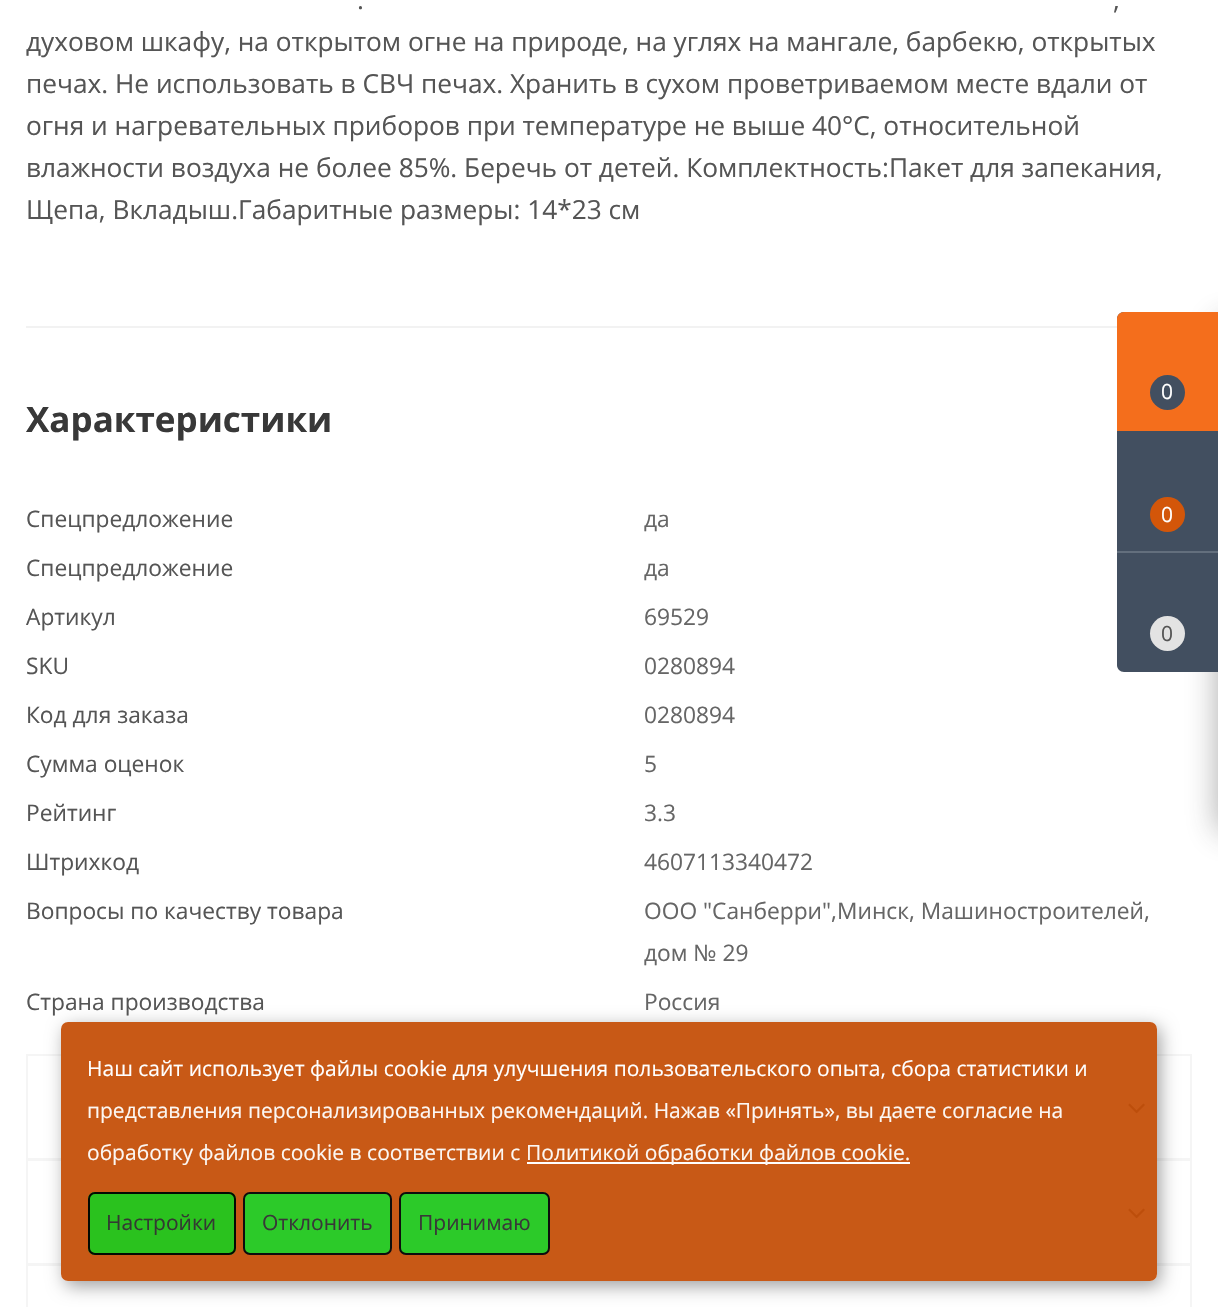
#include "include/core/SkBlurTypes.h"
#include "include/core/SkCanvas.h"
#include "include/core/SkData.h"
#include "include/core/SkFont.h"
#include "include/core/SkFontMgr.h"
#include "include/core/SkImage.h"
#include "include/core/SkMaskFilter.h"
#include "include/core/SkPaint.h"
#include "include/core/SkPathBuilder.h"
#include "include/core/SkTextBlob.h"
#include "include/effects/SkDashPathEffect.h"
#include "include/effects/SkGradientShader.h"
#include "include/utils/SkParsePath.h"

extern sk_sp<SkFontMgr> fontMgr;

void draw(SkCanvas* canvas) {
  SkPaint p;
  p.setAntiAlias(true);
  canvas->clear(SK_ColorWHITE);
  p.setColor(SkColorSetRGB(242, 242, 242));
  canvas->drawRect(SkRect::MakeLTRB(26, 326, 1117, 328), p);
  p.setStyle(SkPaint::kStroke_Style);
  p.setStrokeWidth(2);
  p.setColor(SkColorSetRGB(245, 245, 245));
  canvas->drawRect(SkRect::MakeLTRB(27, 1055, 1191, 1159), p);
  canvas->drawImageRect(SkImages::DeferredFromEncodedData(SkData::MakeFromFileName("images/1.png")), SkRect::MakeLTRB(1128, 1103, 1145, 1114), SkSamplingOptions());
  canvas->drawRect(SkRect::MakeLTRB(27, 1160, 1191, 1264), p);
  canvas->drawImageRect(SkImages::DeferredFromEncodedData(SkData::MakeFromFileName("images/1.png")), SkRect::MakeLTRB(1128, 1208, 1145, 1219), SkSamplingOptions());
  canvas->drawRect(SkRect::MakeLTRB(27, 1265, 1191, 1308), p);
  p.setStyle(SkPaint::kFill_Style);
  p.setColor(SkColorSetARGB(102, 44, 44, 44));
  p.setMaskFilter(SkMaskFilter::MakeBlur(kNormal_SkBlurStyle, 16));
  canvas->drawRoundRect(SkRect::MakeLTRB(1218, 322, 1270, 831), 4, 4, p);
  p.setMaskFilter(nullptr);
  p.setColor(SkColorSetRGB(66, 79, 96));
  canvas->drawPath(SkPathBuilder().moveTo(1124, 312).lineTo(1218, 312).lineTo(1218, 672).lineTo(1124, 672).cubicTo(1120, 672, 1117, 669, 1117, 665).lineTo(1117, 319).cubicTo(1117, 315, 1120, 312, 1124, 312).close().detach(), p);
  p.setColor(SkColorSetRGB(244, 110, 28));
  canvas->drawPath(SkPathBuilder().moveTo(1124, 312).lineTo(1218, 312).lineTo(1218, 431).lineTo(1117, 431).lineTo(1117, 319).cubicTo(1117, 315, 1120, 312, 1124, 312).close().detach(), p);
  p.setColor(SkColorSetRGB(66, 79, 96));
  canvas->drawCircle(1167.5f, 392.5f, 17.5f, p);
  p.setColor(SkColorSetRGB(211, 86, 9));
  canvas->drawCircle(1167.5f, 514.5f, 17.5f, p);
  p.setColor(SkColorSetRGB(99, 111, 125));
  canvas->drawRect(SkRect::MakeLTRB(1117, 551, 1218, 553), p);
  p.setColor(SkColorSetRGB(227, 227, 227));
  canvas->drawCircle(1167.5f, 633.5f, 17.5f, p);
  canvas->save();
  canvas->clipPath(SkPathBuilder(SkPathFillType::kEvenOdd).moveTo(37, 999).lineTo(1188, 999).lineTo(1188, 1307).lineTo(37, 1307).close().moveTo(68, 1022).lineTo(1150, 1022).cubicTo(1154, 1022, 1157, 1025, 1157, 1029).lineTo(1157, 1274).cubicTo(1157, 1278, 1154, 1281, 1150, 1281).lineTo(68, 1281).cubicTo(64, 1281, 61, 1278, 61, 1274).lineTo(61, 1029).cubicTo(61, 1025, 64, 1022, 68, 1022).close().detach(), true);
  p.setColor(SkColorSetARGB(97, 0, 0, 0));
  p.setMaskFilter(SkMaskFilter::MakeBlur(kNormal_SkBlurStyle, 9));
  canvas->drawRoundRect(SkRect::MakeLTRB(65, 1027, 1160, 1286), 7, 7, p);
  p.setMaskFilter(nullptr);
  canvas->restore();
  p.setColor(SkColorSetARGB(242, 197, 80, 9));
  canvas->drawRoundRect(SkRect::MakeLTRB(61, 1022, 1157, 1281), 7, 7, p);
  p.setColor(SK_ColorWHITE);
  canvas->drawRect(SkRect::MakeLTRB(527, 1162, 910, 1164), p);
  p.setColor(SkColorSetARGB(242, 33, 199, 30));
  canvas->drawRoundRect(SkRect::MakeLTRB(88, 1192, 236, 1255), 7, 7, p);
  p.setStyle(SkPaint::kStroke_Style);
  p.setColor(SkColorSetARGB(242, 0, 0, 0));
  canvas->drawRoundRect(SkRect::MakeLTRB(89, 1193, 235, 1254), 6, 6, p);
  p.setStyle(SkPaint::kFill_Style);
  p.setColor(SkColorSetRGB(44, 202, 41));
  canvas->drawRoundRect(SkRect::MakeLTRB(244, 1193, 391, 1254), 6, 6, p);
  p.setStyle(SkPaint::kStroke_Style);
  p.setColor(SkColorSetRGB(13, 13, 13));
  canvas->drawRoundRect(SkRect::MakeLTRB(244, 1193, 391, 1254), 6, 6, p);
  p.setStyle(SkPaint::kFill_Style);
  p.setColor(SkColorSetRGB(44, 202, 41));
  canvas->drawRoundRect(SkRect::MakeLTRB(400, 1193, 549, 1254), 6, 6, p);
  p.setStyle(SkPaint::kStroke_Style);
  p.setColor(SkColorSetRGB(13, 13, 13));
  canvas->drawRoundRect(SkRect::MakeLTRB(400, 1193, 549, 1254), 6, 6, p);
  SkFont font1(fontMgr->matchFamilyStyle("Open Sans", SkFontStyle::Normal()), 26.25f);
  font1.setSubpixel(true);
  p.setStyle(SkPaint::kFill_Style);
  p.setColor(SkColorSetRGB(85, 85, 85));
  canvas->drawString(".", 357, 9, font1, p);
  canvas->drawString(",", 1113, 9, font1, p);
  canvas->drawString("духовом шкафу, на открытом огне на природе, на углях на мангале, барбекю, открытых", 26, 51, font1, p);
  canvas->drawString("печах. Не использовать в СВЧ печах. Хранить в сухом проветриваемом месте вдали от", 26, 93, font1, p);
  canvas->drawString("огня и нагревательных приборов при температуре не выше 40°С, относительной", 26, 135, font1, p);
  canvas->drawString("влажности воздуха не более 85%. Беречь от детей. Комплектность:Пакет для запекания,", 26, 177, font1, p);
  canvas->drawString("Щепа, Вкладыш.Габаритные размеры: 14*23 см", 26, 219, font1, p);
  SkFont font2(fontMgr->matchFamilyStyle("Open Sans", SkFontStyle::Bold()), 35);
  font2.setSubpixel(true);
  p.setColor(SkColorSetRGB(56, 56, 56));
  canvas->drawString("Характеристики", 26, 432, font2, p);
  SkFont font3(fontMgr->matchFamilyStyle("Open Sans", SkFontStyle::Normal()), 22.75f);
  font3.setSubpixel(true);
  p.setColor(SkColorSetRGB(85, 85, 85));
  canvas->drawString("Спецпредложение", 26, 527, font3, p);
  p.setColor(SkColorSetRGB(102, 102, 102));
  canvas->drawString("да", 644, 527, font3, p);
  p.setColor(SkColorSetRGB(85, 85, 85));
  canvas->drawString("Спецпредложение", 26, 576, font3, p);
  p.setColor(SkColorSetRGB(102, 102, 102));
  canvas->drawString("да", 644, 576, font3, p);
  p.setColor(SkColorSetRGB(85, 85, 85));
  canvas->drawString("Артикул", 26, 625, font3, p);
  p.setColor(SkColorSetRGB(102, 102, 102));
  canvas->drawString("69529", 644, 625, font3, p);
  p.setColor(SkColorSetRGB(85, 85, 85));
  canvas->drawString("SKU", 26, 674, font3, p);
  p.setColor(SkColorSetRGB(102, 102, 102));
  canvas->drawString("0280894", 644, 674, font3, p);
  p.setColor(SkColorSetRGB(85, 85, 85));
  canvas->drawString("Код для заказа", 26, 723, font3, p);
  p.setColor(SkColorSetRGB(102, 102, 102));
  canvas->drawString("0280894", 644, 723, font3, p);
  p.setColor(SkColorSetRGB(85, 85, 85));
  canvas->drawString("Сумма оценок", 26, 772, font3, p);
  p.setColor(SkColorSetRGB(102, 102, 102));
  canvas->drawString("5", 644, 772, font3, p);
  p.setColor(SkColorSetRGB(85, 85, 85));
  canvas->drawString("Рейтинг", 26, 821, font3, p);
  p.setColor(SkColorSetRGB(102, 102, 102));
  canvas->drawString("3.3", 644, 821, font3, p);
  p.setColor(SkColorSetRGB(85, 85, 85));
  canvas->drawString("Штрихкод", 26, 870, font3, p);
  p.setColor(SkColorSetRGB(102, 102, 102));
  canvas->drawString("4607113340472", 644, 870, font3, p);
  p.setColor(SkColorSetRGB(85, 85, 85));
  canvas->drawString("Вопросы по качеству товара", 26, 919, font3, p);
  p.setColor(SkColorSetRGB(102, 102, 102));
  canvas->drawString("ООО \"Санберри\",Минск, Машиностроителей,", 644, 919, font3, p);
  canvas->drawString("дом № 29", 644, 961, font3, p);
  p.setColor(SkColorSetRGB(85, 85, 85));
  canvas->drawString("Страна производства", 26, 1010, font3, p);
  p.setColor(SkColorSetRGB(102, 102, 102));
  canvas->drawString("Россия", 644, 1010, font3, p);
  SkFont font4(fontMgr->matchFamilyStyle("Open Sans", SkFontStyle::Normal()), 21);
  font4.setSubpixel(true);
  p.setColor(SK_ColorWHITE);
  canvas->drawString("0", 1161, 399, font4, p);
  canvas->drawString("0", 1161, 522, font4, p);
  p.setColor(SkColorSetRGB(85, 85, 85));
  canvas->drawString("0", 1161, 641, font4, p);
  p.setColor(SK_ColorWHITE);
  canvas->drawString("Наш сайт использует файлы cookie для улучшения пользовательского опыта, сбора статистики и", 87, 1076, font4, p);
  p.setColor(SkColorSetRGB(252, 247, 243));
  canvas->drawString("представления персонализированных рекомендаций. Нажав «Принять», вы даете согласие на", 87, 1118, font4, p);
  canvas->drawString("обработку файлов cookie в соответствии с", 87, 1160, font4, p);
  canvas->drawString("Политикой обработки файлов cookie.", 526, 1160, font4, p);
  p.setColor(SkColorSetRGB(51, 58, 50));
  canvas->drawString("Настройки", 106, 1230, font4, p);
  p.setColor(SkColorSetRGB(56, 56, 56));
  canvas->drawString("Отклонить", 262, 1230, font4, p);
  canvas->drawString("Принимаю", 418, 1230, font4, p);
}
